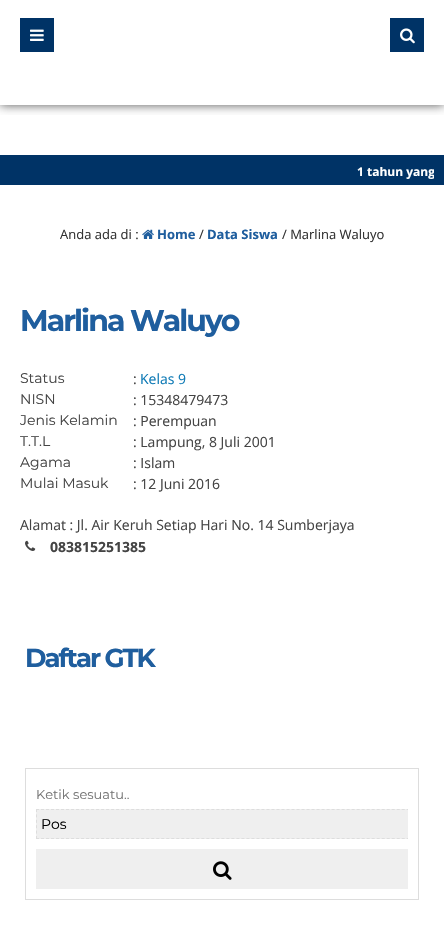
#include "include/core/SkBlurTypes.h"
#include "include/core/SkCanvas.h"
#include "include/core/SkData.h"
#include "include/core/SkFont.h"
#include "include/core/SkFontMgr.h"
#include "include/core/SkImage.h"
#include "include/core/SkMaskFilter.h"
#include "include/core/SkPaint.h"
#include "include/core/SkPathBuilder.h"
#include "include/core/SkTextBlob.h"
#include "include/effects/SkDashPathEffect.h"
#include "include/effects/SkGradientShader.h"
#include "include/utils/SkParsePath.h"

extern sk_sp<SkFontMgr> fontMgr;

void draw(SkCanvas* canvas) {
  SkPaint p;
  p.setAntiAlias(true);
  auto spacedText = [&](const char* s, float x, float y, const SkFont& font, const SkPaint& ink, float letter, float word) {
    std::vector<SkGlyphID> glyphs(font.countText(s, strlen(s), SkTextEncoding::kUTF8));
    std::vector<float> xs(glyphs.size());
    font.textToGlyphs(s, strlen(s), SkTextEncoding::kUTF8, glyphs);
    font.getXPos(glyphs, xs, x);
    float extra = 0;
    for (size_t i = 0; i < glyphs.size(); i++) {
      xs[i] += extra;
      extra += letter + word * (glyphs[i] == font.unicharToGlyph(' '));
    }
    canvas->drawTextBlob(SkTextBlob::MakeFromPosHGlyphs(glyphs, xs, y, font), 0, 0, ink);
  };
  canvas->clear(SK_ColorWHITE);
  canvas->save();
  canvas->clipRect(SkRect::MakeLTRB(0, 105, 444, 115));
  p.setColor(SkColorSetRGB(85, 85, 85));
  p.setMaskFilter(SkMaskFilter::MakeBlur(kNormal_SkBlurStyle, 5));
  canvas->drawRect(SkRect::MakeLTRB(0, 0, 444, 105), p);
  p.setMaskFilter(nullptr);
  canvas->restore();
  p.setColor(SkColorSetRGB(0, 51, 102));
  canvas->drawRect(SkRect::MakeLTRB(20, 18, 54, 52), p);
  canvas->drawImageRect(SkImages::DeferredFromEncodedData(SkData::MakeFromFileName("images/1.png")), SkRect::MakeLTRB(30, 29, 44, 41), SkSamplingOptions());
  canvas->drawRect(SkRect::MakeLTRB(390, 18, 424, 52), p);
  canvas->drawImageRect(SkImages::DeferredFromEncodedData(SkData::MakeFromFileName("images/2.png")), SkRect::MakeLTRB(400, 28, 415, 44), SkSamplingOptions());
  canvas->drawRect(SkRect::MakeLTRB(0, 155, 444, 185), p);
  canvas->drawImageRect(SkImages::DeferredFromEncodedData(SkData::MakeFromFileName("images/3.png")), SkRect::MakeLTRB(142, 229, 154, 239), SkSamplingOptions());
  canvas->drawImageRect(SkImages::DeferredFromEncodedData(SkData::MakeFromFileName("images/4.png")), SkRect::MakeLTRB(25, 540, 36, 551), SkSamplingOptions());
  p.setStyle(SkPaint::kStroke_Style);
  p.setStrokeWidth(1);
  p.setColor(SkColorSetRGB(221, 221, 221));
  canvas->drawRect(SkRect::MakeLTRB(25.5f, 768.5f, 418.5f, 899.5f), p);
  p.setStyle(SkPaint::kFill_Style);
  p.setColor(SkColorSetRGB(239, 239, 239));
  canvas->drawRect(SkRect::MakeLTRB(36, 809, 408, 839), p);
  canvas->save();
  canvas->clipRect(SkRect::MakeLTRB(36, 809, 408, 839));
  p.setStyle(SkPaint::kStroke_Style);
  p.setColor(SkColorSetRGB(221, 221, 221));
  p.setPathEffect(SkDashPathEffect::Make({{3, 2.01f}}, 0));
  canvas->drawPath(SkPathBuilder().moveTo(36, 809.5f).lineTo(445, 809.5f).detach(), p);
  p.setPathEffect(nullptr);
  p.setPathEffect(SkDashPathEffect::Make({{3, 2.01f}}, 0));
  canvas->drawPath(SkPathBuilder().moveTo(36, 838.5f).lineTo(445, 838.5f).detach(), p);
  p.setPathEffect(nullptr);
  canvas->restore();
  p.setPathEffect(SkDashPathEffect::Make({{3, 2.4f}}, 0));
  canvas->drawPath(SkPathBuilder().moveTo(36.5f, 809).lineTo(36.5f, 839).detach(), p);
  p.setPathEffect(nullptr);
  p.setStyle(SkPaint::kFill_Style);
  p.setColor(SkColorSetRGB(239, 239, 239));
  canvas->drawRect(SkRect::MakeLTRB(36, 849, 408, 889), p);
  canvas->drawImageRect(SkImages::DeferredFromEncodedData(SkData::MakeFromFileName("images/5.png")), SkRect::MakeLTRB(213, 861, 232, 880), SkSamplingOptions());
  canvas->save();
  canvas->clipRect(SkRect::MakeLTRB(357, 161, 434, 180));
  SkFont font1(fontMgr->matchFamilyStyle("Open Sans", SkFontStyle::Bold()), 12);
  font1.setSubpixel(true);
  p.setColor(SK_ColorWHITE);
  canvas->drawString("1 tahun yang", 357, 176, font1, p);
  canvas->restore();
  SkFont font2(fontMgr->matchFamilyStyle("Open Sans", SkFontStyle::Normal()), 13);
  font2.setSubpixel(true);
  p.setColor(SkColorSetRGB(51, 51, 51));
  canvas->drawString("Anda ada di :", 60, 239, font2, p);
  SkFont font3(fontMgr->matchFamilyStyle("Open Sans", SkFontStyle::Bold()), 13);
  font3.setSubpixel(true);
  p.setColor(SkColorSetRGB(31, 94, 158));
  canvas->drawString("Home", 157, 239, font3, p);
  p.setColor(SkColorSetRGB(51, 51, 51));
  canvas->drawString("/", 199, 239, font2, p);
  p.setColor(SkColorSetRGB(31, 94, 158));
  canvas->drawString("Data Siswa", 207, 239, font3, p);
  p.setColor(SkColorSetRGB(51, 51, 51));
  canvas->drawString("/ Marlina Waluyo", 282, 239, font2, p);
  SkFont font4(fontMgr->matchFamilyStyle("Montserrat", SkFontStyle::Bold()), 30);
  font4.setSubpixel(true);
  p.setColor(SkColorSetRGB(31, 94, 158));
  spacedText("Marlina Waluyo", 20, 331, font4, p, -2, 0);
  SkFont font5(fontMgr->matchFamilyStyle("Montserrat", SkFontStyle::Normal()), 14);
  font5.setSubpixel(true);
  p.setColor(SkColorSetRGB(68, 68, 68));
  canvas->drawString("Status", 20, 383, font5, p);
  SkFont font6(fontMgr->matchFamilyStyle("Open Sans", SkFontStyle::Normal()), 14);
  font6.setSubpixel(true);
  canvas->drawString(":", 133, 384, font6, p);
  p.setColor(SkColorSetRGB(16, 123, 182));
  canvas->drawString("Kelas 9", 140, 384, font6, p);
  p.setColor(SkColorSetRGB(68, 68, 68));
  canvas->drawString("NISN", 20, 404, font5, p);
  canvas->drawString(": 15348479473", 133, 405, font6, p);
  canvas->drawString("Jenis Kelamin", 20, 425, font5, p);
  canvas->drawString(": Perempuan", 133, 426, font6, p);
  canvas->drawString("T.T.L", 20, 446, font5, p);
  canvas->drawString(": Lampung, 8 Juli 2001", 133, 447, font6, p);
  canvas->drawString("Agama", 20, 467, font5, p);
  canvas->drawString(": Islam", 133, 468, font6, p);
  canvas->drawString("Mulai Masuk", 20, 488, font5, p);
  canvas->drawString(": 12 Juni 2016", 133, 489, font6, p);
  canvas->drawString("Alamat : Jl. Air Keruh Setiap Hari No. 14 Sumberjaya", 20, 530, font6, p);
  SkFont font7(fontMgr->matchFamilyStyle("Open Sans", SkFontStyle::Bold()), 14);
  font7.setSubpixel(true);
  canvas->drawString("083815251385", 50, 552, font7, p);
  SkFont font8(fontMgr->matchFamilyStyle("Montserrat", SkFontStyle::Bold()), 26);
  font8.setSubpixel(true);
  p.setColor(SkColorSetRGB(31, 94, 158));
  spacedText("Daftar GTK", 25, 667, font8, p, -2, 0);
  SkFont font9(fontMgr->matchFamilyStyle("Montserrat", SkFontStyle::Normal()), 13);
  font9.setSubpixel(true);
  p.setColor(SkColorSetRGB(117, 117, 117));
  canvas->drawString("Ketik sesuatu..", 36, 799, font9, p);
  p.setColor(SK_ColorBLACK);
  canvas->drawString("Pos", 41, 829, font5, p);
}
